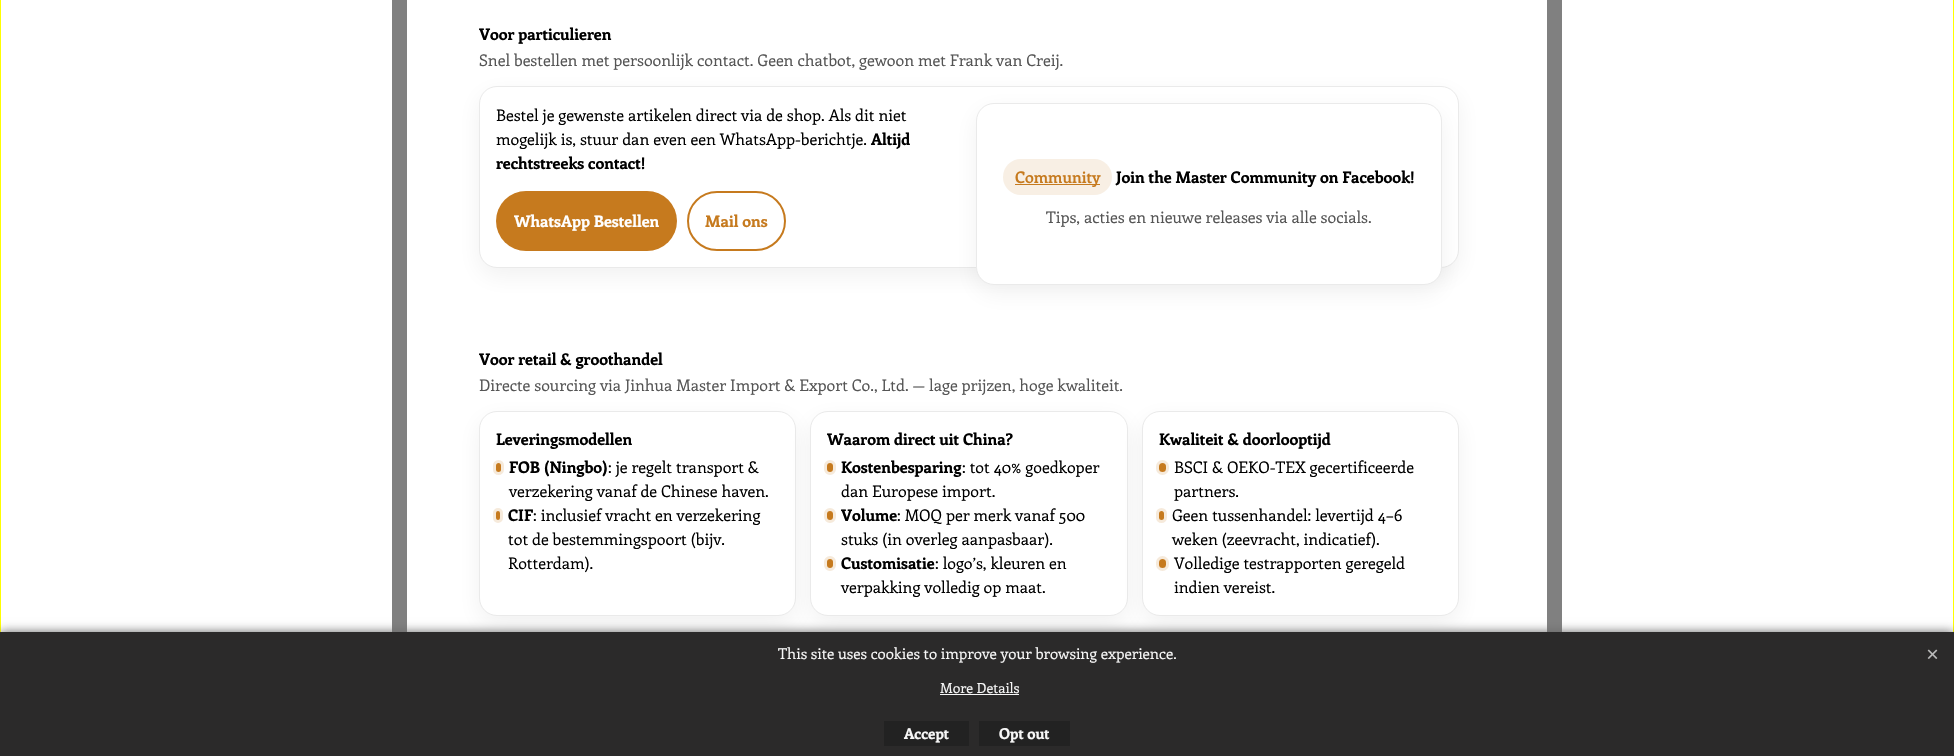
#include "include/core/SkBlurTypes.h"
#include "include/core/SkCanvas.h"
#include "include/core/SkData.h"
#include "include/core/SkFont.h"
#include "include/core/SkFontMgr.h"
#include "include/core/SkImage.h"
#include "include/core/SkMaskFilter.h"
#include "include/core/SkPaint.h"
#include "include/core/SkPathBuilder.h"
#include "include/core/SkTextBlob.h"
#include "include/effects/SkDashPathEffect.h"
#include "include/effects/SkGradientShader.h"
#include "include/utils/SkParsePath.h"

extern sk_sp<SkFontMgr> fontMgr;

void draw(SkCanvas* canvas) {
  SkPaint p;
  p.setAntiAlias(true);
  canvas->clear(SK_ColorWHITE);
  p.setStyle(SkPaint::kStroke_Style);
  p.setStrokeWidth(1);
  p.setColor(SkColorSetRGB(255, 255, 0));
  canvas->drawRect(SkRect::MakeLTRB(0.5f, -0.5f, 1953.5f, 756.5f), p);
  p.setStyle(SkPaint::kFill_Style);
  p.setColor(SkColorSetRGB(128, 128, 128));
  canvas->drawRect(SkRect::MakeLTRB(392, 0, 1562, 632), p);
  p.setColor(SK_ColorWHITE);
  canvas->drawRect(SkRect::MakeLTRB(407, 0, 1547, 632), p);
  p.setColor(SkColorSetARGB(15, 12, 12, 12));
  p.setMaskFilter(SkMaskFilter::MakeBlur(kNormal_SkBlurStyle, 12));
  canvas->drawRoundRect(SkRect::MakeLTRB(479, 94, 1459, 276), 18, 18, p);
  p.setMaskFilter(nullptr);
  p.setColor(SK_ColorWHITE);
  canvas->drawRoundRect(SkRect::MakeLTRB(479.5f, 86.5f, 1458.5f, 267.5f), 17.5f, 17.5f, p);
  p.setStyle(SkPaint::kStroke_Style);
  p.setColor(SkColorSetRGB(234, 234, 234));
  canvas->drawRoundRect(SkRect::MakeLTRB(479.5f, 86.5f, 1458.5f, 267.5f), 17.5f, 17.5f, p);
  p.setStyle(SkPaint::kFill_Style);
  p.setColor(SkColorSetRGB(198, 122, 30));
  canvas->drawRoundRect(SkRect::MakeLTRB(496, 191, 677, 251), 30, 30, p);
  p.setStyle(SkPaint::kStroke_Style);
  p.setStrokeWidth(2);
  canvas->drawRoundRect(SkRect::MakeLTRB(688, 192, 785, 250), 29, 29, p);
  p.setStyle(SkPaint::kFill_Style);
  p.setColor(SkColorSetARGB(15, 12, 12, 12));
  p.setMaskFilter(SkMaskFilter::MakeBlur(kNormal_SkBlurStyle, 12));
  canvas->drawRoundRect(SkRect::MakeLTRB(976, 111, 1442, 293), 18, 18, p);
  p.setMaskFilter(nullptr);
  p.setColor(SK_ColorWHITE);
  canvas->drawRoundRect(SkRect::MakeLTRB(976.5f, 103.5f, 1441.5f, 284.5f), 17.5f, 17.5f, p);
  p.setStyle(SkPaint::kStroke_Style);
  p.setStrokeWidth(1);
  p.setColor(SkColorSetRGB(234, 234, 234));
  canvas->drawRoundRect(SkRect::MakeLTRB(976.5f, 103.5f, 1441.5f, 284.5f), 17.5f, 17.5f, p);
  p.setStyle(SkPaint::kFill_Style);
  p.setColor(SkColorSetRGB(248, 239, 228));
  canvas->drawRoundRect(SkRect::MakeLTRB(1003, 159, 1112, 195), 18, 18, p);
  p.setColor(SkColorSetRGB(198, 122, 30));
  canvas->drawRect(SkRect::MakeLTRB(1015, 184, 1100, 185), p);
  p.setColor(SkColorSetARGB(15, 12, 12, 12));
  p.setMaskFilter(SkMaskFilter::MakeBlur(kNormal_SkBlurStyle, 12));
  canvas->drawRoundRect(SkRect::MakeLTRB(479, 419, 796, 624), 18, 18, p);
  p.setMaskFilter(nullptr);
  p.setColor(SK_ColorWHITE);
  canvas->drawRoundRect(SkRect::MakeLTRB(479.5f, 411.5f, 795.5f, 615.5f), 17.5f, 17.5f, p);
  p.setStyle(SkPaint::kStroke_Style);
  p.setColor(SkColorSetRGB(234, 234, 234));
  canvas->drawRoundRect(SkRect::MakeLTRB(479.5f, 411.5f, 795.5f, 615.5f), 17.5f, 17.5f, p);
  p.setStrokeWidth(3);
  p.setColor(SkColorSetRGB(246, 234, 219));
  canvas->drawRoundRect(SkRect::MakeLTRB(494.5f, 461.5f, 502.5f, 473.5f), 4, 4, p);
  p.setStyle(SkPaint::kFill_Style);
  p.setColor(SkColorSetRGB(198, 122, 30));
  canvas->drawRoundRect(SkRect::MakeLTRB(496, 463, 501, 472), 2.5f, 2.5f, p);
  p.setStyle(SkPaint::kStroke_Style);
  p.setColor(SkColorSetRGB(246, 234, 219));
  canvas->drawRoundRect(SkRect::MakeLTRB(494.5f, 509.5f, 501.5f, 521.5f), 3.5f, 3.5f, p);
  p.setStyle(SkPaint::kFill_Style);
  p.setColor(SkColorSetRGB(198, 122, 30));
  canvas->drawRoundRect(SkRect::MakeLTRB(496, 511, 500, 520), 2, 2, p);
  p.setColor(SkColorSetARGB(15, 12, 12, 12));
  p.setMaskFilter(SkMaskFilter::MakeBlur(kNormal_SkBlurStyle, 12));
  canvas->drawRoundRect(SkRect::MakeLTRB(810, 419, 1128, 624), 18, 18, p);
  p.setMaskFilter(nullptr);
  p.setColor(SK_ColorWHITE);
  canvas->drawRoundRect(SkRect::MakeLTRB(810.5f, 411.5f, 1127.5f, 615.5f), 17.5f, 17.5f, p);
  p.setStyle(SkPaint::kStroke_Style);
  p.setStrokeWidth(1);
  p.setColor(SkColorSetRGB(234, 234, 234));
  canvas->drawRoundRect(SkRect::MakeLTRB(810.5f, 411.5f, 1127.5f, 615.5f), 17.5f, 17.5f, p);
  p.setStrokeWidth(3);
  p.setColor(SkColorSetRGB(246, 234, 219));
  canvas->drawRoundRect(SkRect::MakeLTRB(825.5f, 461.5f, 834.5f, 473.5f), 4.5f, 4.5f, p);
  p.setStyle(SkPaint::kFill_Style);
  p.setColor(SkColorSetRGB(198, 122, 30));
  canvas->drawRoundRect(SkRect::MakeLTRB(827, 463, 833, 472), 3, 3, p);
  p.setStyle(SkPaint::kStroke_Style);
  p.setColor(SkColorSetRGB(246, 234, 219));
  canvas->drawRoundRect(SkRect::MakeLTRB(825.5f, 509.5f, 834.5f, 521.5f), 4.5f, 4.5f, p);
  p.setStyle(SkPaint::kFill_Style);
  p.setColor(SkColorSetRGB(198, 122, 30));
  canvas->drawRoundRect(SkRect::MakeLTRB(827, 511, 833, 520), 3, 3, p);
  p.setStyle(SkPaint::kStroke_Style);
  p.setColor(SkColorSetRGB(246, 234, 219));
  canvas->drawRoundRect(SkRect::MakeLTRB(825.5f, 557.5f, 834.5f, 569.5f), 4.5f, 4.5f, p);
  p.setStyle(SkPaint::kFill_Style);
  p.setColor(SkColorSetRGB(198, 122, 30));
  canvas->drawRoundRect(SkRect::MakeLTRB(827, 559, 833, 568), 3, 3, p);
  p.setColor(SkColorSetARGB(15, 12, 12, 12));
  p.setMaskFilter(SkMaskFilter::MakeBlur(kNormal_SkBlurStyle, 12));
  canvas->drawRoundRect(SkRect::MakeLTRB(1142, 419, 1459, 624), 18, 18, p);
  p.setMaskFilter(nullptr);
  p.setColor(SK_ColorWHITE);
  canvas->drawRoundRect(SkRect::MakeLTRB(1142.5f, 411.5f, 1458.5f, 615.5f), 17.5f, 17.5f, p);
  p.setStyle(SkPaint::kStroke_Style);
  p.setStrokeWidth(1);
  p.setColor(SkColorSetRGB(234, 234, 234));
  canvas->drawRoundRect(SkRect::MakeLTRB(1142.5f, 411.5f, 1458.5f, 615.5f), 17.5f, 17.5f, p);
  p.setStrokeWidth(3);
  p.setColor(SkColorSetRGB(246, 234, 219));
  canvas->drawRoundRect(SkRect::MakeLTRB(1157.5f, 461.5f, 1167.5f, 473.5f), 5, 5, p);
  p.setStyle(SkPaint::kFill_Style);
  p.setColor(SkColorSetRGB(198, 122, 30));
  canvas->drawRoundRect(SkRect::MakeLTRB(1159, 463, 1166, 472), 3.5f, 3.5f, p);
  p.setStyle(SkPaint::kStroke_Style);
  p.setColor(SkColorSetRGB(246, 234, 219));
  canvas->drawRoundRect(SkRect::MakeLTRB(1157.5f, 509.5f, 1165.5f, 521.5f), 4, 4, p);
  p.setStyle(SkPaint::kFill_Style);
  p.setColor(SkColorSetRGB(198, 122, 30));
  canvas->drawRoundRect(SkRect::MakeLTRB(1159, 511, 1164, 520), 2.5f, 2.5f, p);
  p.setStyle(SkPaint::kStroke_Style);
  p.setColor(SkColorSetRGB(246, 234, 219));
  canvas->drawRoundRect(SkRect::MakeLTRB(1157.5f, 557.5f, 1167.5f, 569.5f), 5, 5, p);
  p.setStyle(SkPaint::kFill_Style);
  p.setColor(SkColorSetRGB(198, 122, 30));
  canvas->drawRoundRect(SkRect::MakeLTRB(1159, 559, 1166, 568), 3.5f, 3.5f, p);
  p.setColor(SkColorSetRGB(102, 102, 102));
  p.setMaskFilter(SkMaskFilter::MakeBlur(kNormal_SkBlurStyle, 5));
  canvas->drawRect(SkRect::MakeLTRB(0, 632, 1954, 756), p);
  p.setMaskFilter(nullptr);
  p.setColor(SkColorSetRGB(43, 42, 42));
  canvas->drawRect(SkRect::MakeLTRB(0, 632, 1954, 756), p);
  p.setColor(SkColorSetRGB(247, 247, 247));
  canvas->drawRect(SkRect::MakeLTRB(940, 694, 1019, 695), p);
  canvas->drawImageRect(SkImages::DeferredFromEncodedData(SkData::MakeFromFileName("images/1.png")), SkRect::MakeLTRB(1927, 649, 1938, 659), SkSamplingOptions());
  p.setColor(SkColorSetRGB(34, 34, 34));
  canvas->drawRect(SkRect::MakeLTRB(884, 721, 969, 746), p);
  canvas->drawRect(SkRect::MakeLTRB(979, 721, 1070, 746), p);
  SkFont font1(fontMgr->matchFamilyStyle("Enriqueta", SkFontStyle::Bold()), 16);
  font1.setSubpixel(true);
  p.setColor(SK_ColorBLACK);
  canvas->drawString("Voor particulieren", 479, 40, font1, p);
  SkFont font2(fontMgr->matchFamilyStyle("Enriqueta", SkFontStyle::Normal()), 16);
  font2.setSubpixel(true);
  p.setColor(SkColorSetRGB(85, 85, 85));
  canvas->drawString("Snel bestellen met persoonlijk contact. Geen chatbot, gewoon met Frank van Creij.", 479, 66, font2, p);
  p.setColor(SK_ColorBLACK);
  canvas->drawString("Bestel je gewenste artikelen direct via de shop. Als dit niet", 496, 121, font2, p);
  canvas->drawString("mogelijk is, stuur dan even een WhatsApp-berichtje.", 496, 145, font2, p);
  canvas->drawString("Altijd", 871, 145, font1, p);
  canvas->drawString("rechtstreeks contact!", 496, 169, font1, p);
  p.setColor(SK_ColorWHITE);
  canvas->drawString("WhatsApp Bestellen", 514, 227, font1, p);
  p.setColor(SkColorSetRGB(198, 122, 30));
  canvas->drawString("Mail ons", 705, 227, font1, p);
  SkFont font3(fontMgr->matchFamilyStyle("Enriqueta", SkFontStyle(600, SkFontStyle::kNormal_Width, SkFontStyle::kUpright_Slant)), 16);
  font3.setSubpixel(true);
  canvas->drawString("Community", 1015, 183, font3, p);
  p.setColor(SK_ColorBLACK);
  canvas->drawString("Join the Master Community on Facebook!", 1116, 183, font1, p);
  p.setColor(SkColorSetRGB(85, 85, 85));
  canvas->drawString("Tips, acties en nieuwe releases via alle socials.", 1046, 223, font2, p);
  p.setColor(SK_ColorBLACK);
  canvas->drawString("Voor retail & groothandel", 479, 365, font1, p);
  p.setColor(SkColorSetRGB(85, 85, 85));
  canvas->drawString("Directe sourcing via Jinhua Master Import & Export Co., Ltd. — lage prijzen, hoge kwaliteit.", 479, 391, font2, p);
  p.setColor(SK_ColorBLACK);
  canvas->drawString("Leveringsmodellen", 496, 445, font1, p);
  canvas->drawString("FOB (Ningbo)", 509, 473, font1, p);
  canvas->drawString(": je regelt transport &", 608, 473, font2, p);
  canvas->drawString("verzekering vanaf de Chinese haven.", 509, 497, font2, p);
  canvas->drawString("CIF", 508, 521, font1, p);
  canvas->drawString(": inclusief vracht en verzekering", 533, 521, font2, p);
  canvas->drawString("tot de bestemmingspoort (bijv.", 508, 545, font2, p);
  canvas->drawString("Rotterdam).", 508, 569, font2, p);
  canvas->drawString("Waarom direct uit China?", 827, 445, font1, p);
  canvas->drawString("Kostenbesparing", 841, 473, font1, p);
  canvas->drawString(": tot 40% goedkoper", 962, 473, font2, p);
  canvas->drawString("dan Europese import.", 841, 497, font2, p);
  canvas->drawString("Volume", 841, 521, font1, p);
  canvas->drawString(": MOQ per merk vanaf 500", 897, 521, font2, p);
  canvas->drawString("stuks (in overleg aanpasbaar).", 841, 545, font2, p);
  canvas->drawString("Customisatie", 841, 569, font1, p);
  canvas->drawString(": logo’s, kleuren en", 935, 569, font2, p);
  canvas->drawString("verpakking volledig op maat.", 841, 593, font2, p);
  canvas->drawString("Kwaliteit & doorlooptijd", 1159, 445, font1, p);
  canvas->drawString("BSCI & OEKO-TEX gecertificeerde", 1174, 473, font2, p);
  canvas->drawString("partners.", 1174, 497, font2, p);
  canvas->drawString("Geen tussenhandel: levertijd 4–6", 1172, 521, font2, p);
  canvas->drawString("weken (zeevracht, indicatief).", 1172, 545, font2, p);
  canvas->drawString("Volledige testrapporten geregeld", 1174, 569, font2, p);
  canvas->drawString("indien vereist.", 1174, 593, font2, p);
  SkFont font4(fontMgr->matchFamilyStyle("Enriqueta", SkFontStyle::Normal()), 15);
  font4.setSubpixel(true);
  p.setColor(SkColorSetRGB(247, 247, 247));
  canvas->drawString("This site uses cookies to improve your browsing experience.", 778, 659, font4, p);
  SkFont font5(fontMgr->matchFamilyStyle("Enriqueta", SkFontStyle::Normal()), 14);
  font5.setSubpixel(true);
  canvas->drawString("More Details", 940, 693, font5, p);
  SkFont font6(fontMgr->matchFamilyStyle("Enriqueta", SkFontStyle::Bold()), 15);
  font6.setSubpixel(true);
  canvas->drawString("Accept", 904, 739, font6, p);
  canvas->drawString("Opt out", 999, 739, font6, p);
}
